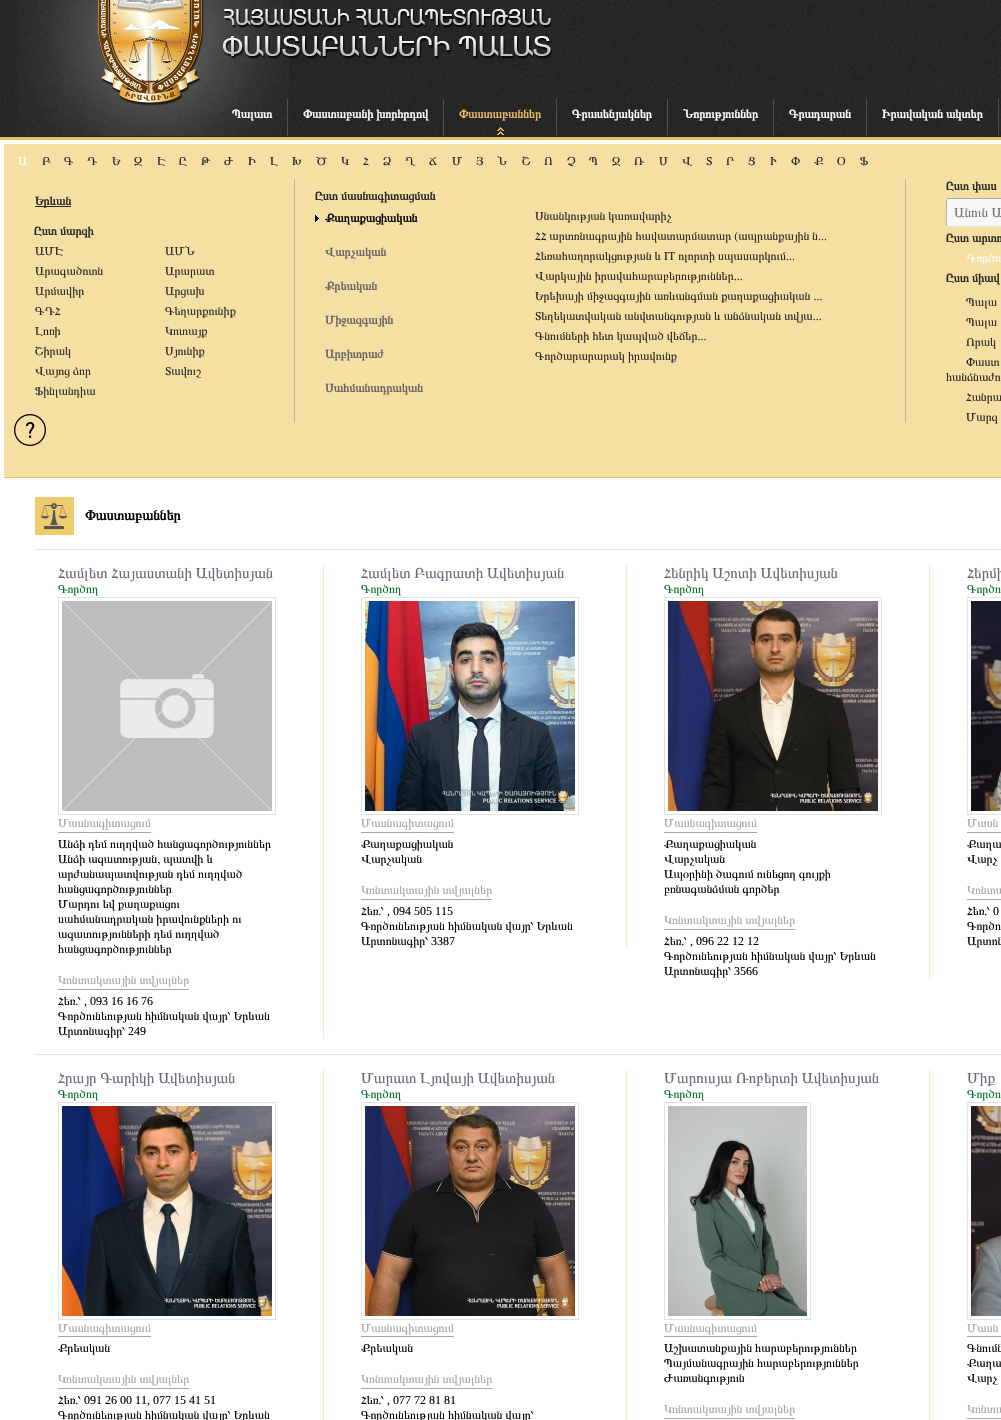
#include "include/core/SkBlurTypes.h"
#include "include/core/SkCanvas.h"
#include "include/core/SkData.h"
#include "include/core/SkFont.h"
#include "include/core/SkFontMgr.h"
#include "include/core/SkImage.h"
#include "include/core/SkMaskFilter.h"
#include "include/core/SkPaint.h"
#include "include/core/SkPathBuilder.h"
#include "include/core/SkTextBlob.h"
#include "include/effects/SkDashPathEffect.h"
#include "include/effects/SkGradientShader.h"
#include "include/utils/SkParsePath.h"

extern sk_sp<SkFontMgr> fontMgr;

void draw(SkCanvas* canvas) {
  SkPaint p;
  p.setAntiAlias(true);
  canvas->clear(SK_ColorWHITE);
  canvas->drawImageRect(SkImages::DeferredFromEncodedData(SkData::MakeFromFileName("images/1.png")), SkRect::MakeLTRB(0, 0, 1001, 137), SkSamplingOptions());
  p.setColor(SkColorSetRGB(233, 189, 104));
  canvas->drawRect(SkRect::MakeLTRB(0, 137, 1001, 140), p);
  canvas->drawImageRect(SkImages::DeferredFromEncodedData(SkData::MakeFromFileName("images/2.png")), SkRect::MakeLTRB(17, 0, 289, 136), SkSamplingOptions());
  canvas->drawImageRect(SkImages::DeferredFromEncodedData(SkData::MakeFromFileName("images/3.png")), SkRect::MakeLTRB(98, 0, 204, 106), SkSamplingOptions());
  canvas->drawImageRect(SkImages::DeferredFromEncodedData(SkData::MakeFromFileName("images/4.png")), SkRect::MakeLTRB(223, 9, 553, 59), SkSamplingOptions());
  p.setColor(SkColorSetARGB(69, 233, 188, 103));
  canvas->drawRect(SkRect::MakeLTRB(287, 99, 288, 136), p);
  canvas->drawRect(SkRect::MakeLTRB(443, 99, 444, 136), p);
  canvas->drawRect(SkRect::MakeLTRB(556, 99, 557, 136), p);
  canvas->drawImageRect(SkImages::DeferredFromEncodedData(SkData::MakeFromFileName("images/5.png")), SkRect::MakeLTRB(497, 127, 504, 135), SkSamplingOptions());
  canvas->drawRect(SkRect::MakeLTRB(667, 99, 668, 136), p);
  canvas->drawRect(SkRect::MakeLTRB(773, 99, 774, 136), p);
  canvas->drawRect(SkRect::MakeLTRB(866, 99, 867, 136), p);
  canvas->drawRect(SkRect::MakeLTRB(998, 99, 999, 136), p);
  p.setColor(SkColorSetRGB(245, 223, 162));
  canvas->drawRect(SkRect::MakeLTRB(4, 144, 1001, 477), p);
  p.setColor(SkColorSetRGB(233, 189, 104));
  canvas->drawRect(SkRect::MakeLTRB(4, 477, 1001, 478), p);
  p.setColor(SkColorSetRGB(39, 39, 39));
  canvas->drawRect(SkRect::MakeLTRB(35, 206, 71, 207), p);
  canvas->drawImageRect(SkImages::DeferredFromEncodedData(SkData::MakeFromFileName("images/6.png")), SkRect::MakeLTRB(14, 414, 46, 446), SkSamplingOptions());
  p.setColor(SkColorSetRGB(195, 179, 133));
  canvas->drawRect(SkRect::MakeLTRB(905, 179, 906, 423), p);
  canvas->drawRect(SkRect::MakeLTRB(294, 179, 295, 423), p);
  canvas->drawImageRect(SkImages::DeferredFromEncodedData(SkData::MakeFromFileName("images/7.png")), SkRect::MakeLTRB(315, 215, 319, 222), SkSamplingOptions());
  p.setColor(SkColorSetRGB(248, 247, 247));
  canvas->drawRoundRect(SkRect::MakeLTRB(946, 198, 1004, 227), 3, 3, p);
  p.setStyle(SkPaint::kStroke_Style);
  p.setStrokeWidth(1);
  p.setColor(SkColorSetRGB(230, 230, 230));
  canvas->drawPath(SkPathBuilder().moveTo(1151, 199).cubicTo(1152.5f, 201, 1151.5f, 210, 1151.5f, 212.5f).lineTo(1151.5f, 220).cubicTo(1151.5f, 222, 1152.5f, 226.5f, 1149, 226.5f).lineTo(949, 226.5f).lineTo(947, 226).detach(), p);
  p.setColor(SkColorSetRGB(169, 168, 168));
  canvas->drawPath(SkPathBuilder().moveTo(947, 226).cubicTo(945.5f, 224, 946.5f, 215, 946.5f, 212.5f).lineTo(946.5f, 205).cubicTo(946.5f, 203, 945.5f, 198.5f, 949, 198.5f).lineTo(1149, 198.5f).lineTo(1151, 199).detach(), p);
  canvas->drawImageRect(SkImages::DeferredFromEncodedData(SkData::MakeFromFileName("images/8.png")), SkRect::MakeLTRB(35, 497, 74, 535), SkSamplingOptions());
  p.setStyle(SkPaint::kFill_Style);
  p.setColor(SkColorSetRGB(225, 225, 225));
  canvas->drawRect(SkRect::MakeLTRB(35, 549, 1001, 550), p);
  p.setColor(SkColorSetRGB(247, 232, 202));
  canvas->drawRect(SkRect::MakeLTRB(323, 565, 324, 1039), p);
  p.setStyle(SkPaint::kStroke_Style);
  p.setColor(SkColorSetRGB(225, 225, 225));
  canvas->drawRect(SkRect::MakeLTRB(58.5f, 597.5f, 275.5f, 814.5f), p);
  canvas->drawImageRect(SkImages::DeferredFromEncodedData(SkData::MakeFromFileName("images/9.png")), SkRect::MakeLTRB(62, 601, 272, 811), SkSamplingOptions());
  p.setStyle(SkPaint::kFill_Style);
  p.setColor(SkColorSetRGB(164, 164, 164));
  canvas->drawRect(SkRect::MakeLTRB(58, 832, 151, 833), p);
  canvas->drawRect(SkRect::MakeLTRB(58, 989, 189, 990), p);
  p.setColor(SkColorSetRGB(247, 232, 202));
  canvas->drawRect(SkRect::MakeLTRB(626, 565, 627, 949), p);
  p.setStyle(SkPaint::kStroke_Style);
  p.setColor(SkColorSetRGB(225, 225, 225));
  canvas->drawRect(SkRect::MakeLTRB(361.5f, 597.5f, 578.5f, 814.5f), p);
  canvas->drawImageRect(SkImages::DeferredFromEncodedData(SkData::MakeFromFileName("images/10.png")), SkRect::MakeLTRB(365, 601, 575, 811), SkSamplingOptions());
  p.setStyle(SkPaint::kFill_Style);
  p.setColor(SkColorSetRGB(164, 164, 164));
  canvas->drawRect(SkRect::MakeLTRB(361, 832, 454, 833), p);
  canvas->drawRect(SkRect::MakeLTRB(361, 899, 492, 900), p);
  p.setColor(SkColorSetRGB(247, 232, 202));
  canvas->drawRect(SkRect::MakeLTRB(929, 565, 930, 979), p);
  p.setStyle(SkPaint::kStroke_Style);
  p.setColor(SkColorSetRGB(225, 225, 225));
  canvas->drawRect(SkRect::MakeLTRB(664.5f, 597.5f, 881.5f, 814.5f), p);
  canvas->drawImageRect(SkImages::DeferredFromEncodedData(SkData::MakeFromFileName("images/11.png")), SkRect::MakeLTRB(668, 601, 878, 811), SkSamplingOptions());
  p.setStyle(SkPaint::kFill_Style);
  p.setColor(SkColorSetRGB(164, 164, 164));
  canvas->drawRect(SkRect::MakeLTRB(664, 832, 757, 833), p);
  canvas->drawRect(SkRect::MakeLTRB(664, 929, 795, 930), p);
  p.setStyle(SkPaint::kStroke_Style);
  p.setColor(SkColorSetRGB(225, 225, 225));
  canvas->drawRect(SkRect::MakeLTRB(967.5f, 597.5f, 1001.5f, 814.5f), p);
  canvas->drawImageRect(SkImages::DeferredFromEncodedData(SkData::MakeFromFileName("images/12.png")), SkRect::MakeLTRB(971, 601, 1001, 811), SkSamplingOptions());
  p.setStyle(SkPaint::kFill_Style);
  p.setColor(SkColorSetRGB(164, 164, 164));
  canvas->drawRect(SkRect::MakeLTRB(967, 832, 1001, 833), p);
  canvas->drawRect(SkRect::MakeLTRB(967, 899, 1001, 900), p);
  p.setColor(SkColorSetRGB(225, 225, 225));
  canvas->drawRect(SkRect::MakeLTRB(35, 1054, 1001, 1055), p);
  p.setColor(SkColorSetRGB(247, 232, 202));
  canvas->drawRect(SkRect::MakeLTRB(323, 1070, 324, 1420), p);
  p.setStyle(SkPaint::kStroke_Style);
  p.setColor(SkColorSetRGB(225, 225, 225));
  canvas->drawRect(SkRect::MakeLTRB(58.5f, 1102.5f, 275.5f, 1319.5f), p);
  canvas->drawImageRect(SkImages::DeferredFromEncodedData(SkData::MakeFromFileName("images/13.png")), SkRect::MakeLTRB(62, 1106, 272, 1316), SkSamplingOptions());
  p.setStyle(SkPaint::kFill_Style);
  p.setColor(SkColorSetRGB(164, 164, 164));
  canvas->drawRect(SkRect::MakeLTRB(58, 1336, 151, 1337), p);
  canvas->drawRect(SkRect::MakeLTRB(58, 1388, 189, 1389), p);
  p.setColor(SkColorSetRGB(247, 232, 202));
  canvas->drawRect(SkRect::MakeLTRB(626, 1070, 627, 1420), p);
  p.setStyle(SkPaint::kStroke_Style);
  p.setColor(SkColorSetRGB(225, 225, 225));
  canvas->drawRect(SkRect::MakeLTRB(361.5f, 1102.5f, 578.5f, 1319.5f), p);
  canvas->drawImageRect(SkImages::DeferredFromEncodedData(SkData::MakeFromFileName("images/14.png")), SkRect::MakeLTRB(365, 1106, 575, 1316), SkSamplingOptions());
  p.setStyle(SkPaint::kFill_Style);
  p.setColor(SkColorSetRGB(164, 164, 164));
  canvas->drawRect(SkRect::MakeLTRB(361, 1336, 454, 1337), p);
  canvas->drawRect(SkRect::MakeLTRB(361, 1388, 492, 1389), p);
  p.setColor(SkColorSetRGB(247, 232, 202));
  canvas->drawRect(SkRect::MakeLTRB(929, 1070, 930, 1420), p);
  p.setStyle(SkPaint::kStroke_Style);
  p.setColor(SkColorSetRGB(225, 225, 225));
  canvas->drawRect(SkRect::MakeLTRB(664.5f, 1102.5f, 810.5f, 1319.5f), p);
  canvas->drawImageRect(SkImages::DeferredFromEncodedData(SkData::MakeFromFileName("images/15.png")), SkRect::MakeLTRB(668, 1106, 807, 1316), SkSamplingOptions());
  p.setStyle(SkPaint::kFill_Style);
  p.setColor(SkColorSetRGB(164, 164, 164));
  canvas->drawRect(SkRect::MakeLTRB(664, 1336, 757, 1337), p);
  canvas->drawRect(SkRect::MakeLTRB(664, 1418, 795, 1419), p);
  p.setStyle(SkPaint::kStroke_Style);
  p.setColor(SkColorSetRGB(225, 225, 225));
  canvas->drawRect(SkRect::MakeLTRB(967.5f, 1102.5f, 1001.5f, 1319.5f), p);
  canvas->drawImageRect(SkImages::DeferredFromEncodedData(SkData::MakeFromFileName("images/16.png")), SkRect::MakeLTRB(971, 1106, 1001, 1316), SkSamplingOptions());
  p.setStyle(SkPaint::kFill_Style);
  p.setColor(SkColorSetRGB(164, 164, 164));
  canvas->drawRect(SkRect::MakeLTRB(967, 1336, 1001, 1337), p);
  canvas->drawRect(SkRect::MakeLTRB(967, 1418, 1001, 1419), p);
  SkFont font1(fontMgr->matchFamilyStyle("FreeSerif", SkFontStyle::Bold()), 12);
  font1.setSubpixel(true);
  p.setColor(SK_ColorWHITE);
  canvas->drawString("Պալատ", 232, 118, font1, p);
  canvas->drawString("Փաստաբանի խորհրդով", 303, 118, font1, p);
  p.setColor(SkColorSetRGB(233, 189, 104));
  canvas->drawString("Փաստաբաններ", 459, 118, font1, p);
  p.setColor(SK_ColorWHITE);
  canvas->drawString("Գրասենյակներ", 572, 118, font1, p);
  canvas->drawString("Նորություններ", 683, 118, font1, p);
  canvas->drawString("Գրադարան", 789, 118, font1, p);
  canvas->drawString("Իրավական ակտեր", 882, 118, font1, p);
  SkFont font2(fontMgr->matchFamilyStyle("FreeSerif", SkFontStyle::Normal()), 12);
  font2.setSubpixel(true);
  canvas->drawString("Ա", 18, 165, font2, p);
  p.setColor(SkColorSetRGB(39, 39, 39));
  canvas->drawString("Բ", 42, 165, font2, p);
  canvas->drawString("Գ", 64, 165, font2, p);
  canvas->drawString("Դ", 87, 165, font2, p);
  canvas->drawString("Ե", 112, 165, font2, p);
  canvas->drawString("Զ", 134, 165, font2, p);
  canvas->drawString("Է", 157, 165, font2, p);
  canvas->drawString("Ը", 179, 165, font2, p);
  canvas->drawString("Թ", 201, 165, font2, p);
  canvas->drawString("Ժ", 224, 165, font2, p);
  canvas->drawString("Ի", 248, 165, font2, p);
  canvas->drawString("Լ", 270, 165, font2, p);
  canvas->drawString("Խ", 292, 165, font2, p);
  canvas->drawString("Ծ", 316, 165, font2, p);
  canvas->drawString("Կ", 341, 165, font2, p);
  canvas->drawString("Հ", 363, 165, font2, p);
  canvas->drawString("Ձ", 383, 165, font2, p);
  canvas->drawString("Ղ", 405, 165, font2, p);
  canvas->drawString("Ճ", 429, 165, font2, p);
  canvas->drawString("Մ", 452, 165, font2, p);
  canvas->drawString("Յ", 476, 165, font2, p);
  canvas->drawString("Ն", 497, 165, font2, p);
  canvas->drawString("Շ", 522, 165, font2, p);
  canvas->drawString("Ո", 544, 165, font2, p);
  canvas->drawString("Չ", 567, 165, font2, p);
  canvas->drawString("Պ", 589, 165, font2, p);
  canvas->drawString("Ջ", 612, 165, font2, p);
  canvas->drawString("Ռ", 634, 165, font2, p);
  canvas->drawString("Ս", 659, 165, font2, p);
  canvas->drawString("Վ", 682, 165, font2, p);
  canvas->drawString("Տ", 706, 165, font2, p);
  canvas->drawString("Ր", 726, 165, font2, p);
  canvas->drawString("Ց", 748, 165, font2, p);
  canvas->drawString("Ւ", 770, 165, font2, p);
  canvas->drawString("Փ", 791, 165, font2, p);
  canvas->drawString("Ք", 814, 165, font2, p);
  canvas->drawString("Օ", 837, 165, font2, p);
  canvas->drawString("Ֆ", 860, 165, font2, p);
  canvas->drawString("Երևան", 35, 205, font1, p);
  canvas->drawString("Ըստ մարզի", 34, 235, font1, p);
  canvas->drawString("ԱՄԷ", 35, 255, font2, p);
  canvas->drawString("ԱՄՆ", 165, 255, font2, p);
  canvas->drawString("Արագածոտն", 35, 275, font2, p);
  canvas->drawString("Արարատ", 165, 275, font2, p);
  canvas->drawString("Արմավիր", 35, 295, font2, p);
  canvas->drawString("Արցախ", 165, 295, font2, p);
  canvas->drawString("ԳԴՀ", 35, 315, font2, p);
  canvas->drawString("Գեղարքունիք", 165, 315, font2, p);
  canvas->drawString("Լոռի", 35, 335, font2, p);
  canvas->drawString("Կոտայք", 165, 335, font2, p);
  canvas->drawString("Շիրակ", 35, 355, font2, p);
  canvas->drawString("Սյունիք", 165, 355, font2, p);
  canvas->drawString("Վայոց ձոր", 35, 375, font2, p);
  canvas->drawString("Տավուշ", 165, 375, font2, p);
  canvas->drawString("Ֆինլանդիա", 35, 395, font2, p);
  canvas->drawString("Ըստ մասնագիտացման", 315, 200, font1, p);
  p.setColor(SK_ColorBLACK);
  canvas->drawString("Քաղաքացիական", 325, 222, font1, p);
  p.setColor(SkColorSetRGB(102, 102, 102));
  canvas->drawString("Վարչական", 325, 256, font1, p);
  canvas->drawString("Քրեական", 325, 290, font1, p);
  canvas->drawString("Միջազգային", 325, 324, font1, p);
  canvas->drawString("Արբիտրաժ", 325, 358, font1, p);
  canvas->drawString("Սահմանադրական", 325, 392, font1, p);
  p.setColor(SkColorSetRGB(39, 39, 39));
  canvas->drawString("Սնանկության կառավարիչ", 535, 220, font2, p);
  canvas->drawString("ՀՀ արտոնագրային հավատարմատար (ապրանքային ն...", 535, 240, font2, p);
  canvas->drawString("Հեռահաղորակցության և IT ոլորտի սպասարկում...", 535, 260, font2, p);
  canvas->drawString("Վարկային իրավահարաբերություններ...", 535, 280, font2, p);
  canvas->drawString("Երեխայի միջազգային առևանգման քաղաքացիական ...", 535, 300, font2, p);
  canvas->drawString("Տեղեկատվական անվտանգության և անձնական տվյա...", 535, 320, font2, p);
  canvas->drawString("Գնումների հետ կապված վեճեր...", 535, 340, font2, p);
  canvas->drawString("Գործարարարակ իրավունք", 535, 360, font2, p);
  canvas->drawString("Ըստ փաս", 946, 190, font1, p);
  SkFont font3(fontMgr->matchFamilyStyle("FreeSerif", SkFontStyle::Normal()), 13.5f);
  font3.setSubpixel(true);
  p.setColor(SkColorSetRGB(117, 117, 117));
  canvas->drawString("Անուն Ա", 954, 217, font3, p);
  p.setColor(SkColorSetRGB(39, 39, 39));
  canvas->drawString("Ըստ արտո", 946, 242, font1, p);
  p.setColor(SK_ColorWHITE);
  canvas->drawString("Գործո", 967, 262, font2, p);
  p.setColor(SkColorSetRGB(39, 39, 39));
  canvas->drawString("Ըստ միավ", 946, 282, font1, p);
  canvas->drawString("Պալա", 966, 306, font2, p);
  canvas->drawString("Պալա", 966, 326, font2, p);
  canvas->drawString("Որակ", 966, 346, font2, p);
  canvas->drawString("Փաստ", 966, 366, font2, p);
  canvas->drawString("հանձնաժո", 946, 381, font2, p);
  canvas->drawString("Հանրա", 966, 401, font2, p);
  canvas->drawString("Մարզ", 966, 421, font2, p);
  SkFont font4(fontMgr->matchFamilyStyle("FreeSerif", SkFontStyle::Bold()), 14);
  font4.setSubpixel(true);
  p.setColor(SK_ColorBLACK);
  canvas->drawString("Փաստաբաններ", 85, 520, font4, p);
  SkFont font5(fontMgr->matchFamilyStyle("FreeSerif", SkFontStyle::Normal()), 15);
  font5.setSubpixel(true);
  p.setColor(SkColorSetRGB(106, 106, 122));
  canvas->drawString("Համլետ Հայաստանի Ավետիսյան", 58, 578, font5, p);
  p.setColor(SkColorSetRGB(4, 114, 32));
  canvas->drawString("Գործող", 58, 593, font2, p);
  p.setColor(SkColorSetRGB(164, 164, 164));
  canvas->drawString("Մասնագիտացում", 58, 827, font2, p);
  p.setColor(SK_ColorBLACK);
  canvas->drawString("Անձի դեմ ուղղված հանցագործություններ", 58, 848, font2, p);
  canvas->drawString("Անձի ազատության, պատվի և", 58, 863, font2, p);
  canvas->drawString("արժանապատվության դեմ ուղղված", 58, 878, font2, p);
  canvas->drawString("հանցագործություններ", 58, 893, font2, p);
  canvas->drawString("Մարդու եվ քաղաքացու", 58, 908, font2, p);
  canvas->drawString("սահմանադրական իրավունքների ու", 58, 923, font2, p);
  canvas->drawString("ազատությունների դեմ ուղղված", 58, 938, font2, p);
  canvas->drawString("հանցագործություններ", 58, 953, font2, p);
  p.setColor(SkColorSetRGB(164, 164, 164));
  canvas->drawString("Կոնտակտային տվյալներ", 58, 984, font2, p);
  p.setColor(SK_ColorBLACK);
  canvas->drawString("Հեռ.՝", 58, 1005, font2, p);
  SkFont font6(fontMgr->matchFamilyStyle("Liberation Serif", SkFontStyle::Normal()), 12);
  font6.setSubpixel(true);
  canvas->drawString(", 093 16 16 76", 84, 1005, font6, p);
  canvas->drawString("Գործունեության հիմնական վայր՝ Երևան", 58, 1020, font2, p);
  canvas->drawString("Արտոնագիր՝", 58, 1035, font2, p);
  canvas->drawString("249", 128, 1035, font6, p);
  p.setColor(SkColorSetRGB(106, 106, 122));
  canvas->drawString("Համլետ Բագրատի Ավետիսյան", 361, 578, font5, p);
  p.setColor(SkColorSetRGB(4, 114, 32));
  canvas->drawString("Գործող", 361, 593, font2, p);
  p.setColor(SkColorSetRGB(164, 164, 164));
  canvas->drawString("Մասնագիտացում", 361, 827, font2, p);
  p.setColor(SK_ColorBLACK);
  canvas->drawString("Քաղաքացիական", 361, 848, font2, p);
  canvas->drawString("Վարչական", 361, 863, font2, p);
  p.setColor(SkColorSetRGB(164, 164, 164));
  canvas->drawString("Կոնտակտային տվյալներ", 361, 894, font2, p);
  p.setColor(SK_ColorBLACK);
  canvas->drawString("Հեռ.՝", 361, 915, font2, p);
  canvas->drawString(", 094 505 115", 387, 915, font6, p);
  canvas->drawString("Գործունեության հիմնական վայր՝ Երևան", 361, 930, font2, p);
  canvas->drawString("Արտոնագիր՝", 361, 945, font2, p);
  canvas->drawString("3387", 431, 945, font6, p);
  p.setColor(SkColorSetRGB(106, 106, 122));
  canvas->drawString("Հենրիկ Աշոտի Ավետիսյան", 664, 578, font5, p);
  p.setColor(SkColorSetRGB(4, 114, 32));
  canvas->drawString("Գործող", 664, 593, font2, p);
  p.setColor(SkColorSetRGB(164, 164, 164));
  canvas->drawString("Մասնագիտացում", 664, 827, font2, p);
  p.setColor(SK_ColorBLACK);
  canvas->drawString("Քաղաքացիական", 664, 848, font2, p);
  canvas->drawString("Վարչական", 664, 863, font2, p);
  canvas->drawString("Ապօրինի ծագում ունեցող գույքի", 664, 878, font2, p);
  canvas->drawString("բռնագանձման գործեր", 664, 893, font2, p);
  p.setColor(SkColorSetRGB(164, 164, 164));
  canvas->drawString("Կոնտակտային տվյալներ", 664, 924, font2, p);
  p.setColor(SK_ColorBLACK);
  canvas->drawString("Հեռ.՝", 664, 945, font2, p);
  canvas->drawString(", 096 22 12 12", 690, 945, font6, p);
  canvas->drawString("Գործունեության հիմնական վայր՝ Երևան", 664, 960, font2, p);
  canvas->drawString("Արտոնագիր՝", 664, 975, font2, p);
  canvas->drawString("3566", 734, 975, font6, p);
  p.setColor(SkColorSetRGB(106, 106, 122));
  canvas->drawString("Հերմի", 967, 578, font5, p);
  p.setColor(SkColorSetRGB(4, 114, 32));
  canvas->drawString("Գործո", 967, 593, font2, p);
  p.setColor(SkColorSetRGB(164, 164, 164));
  canvas->drawString("Մասն", 967, 827, font2, p);
  p.setColor(SK_ColorBLACK);
  canvas->drawString("Քաղա", 967, 848, font2, p);
  canvas->drawString("Վարչ", 967, 863, font2, p);
  p.setColor(SkColorSetRGB(164, 164, 164));
  canvas->drawString("Կոնտա", 967, 894, font2, p);
  p.setColor(SK_ColorBLACK);
  canvas->drawString("Հեռ.՝", 967, 915, font2, p);
  canvas->drawString("0", 993, 915, font6, p);
  canvas->drawString("Գործո", 967, 930, font2, p);
  canvas->drawString("Արտոն", 967, 945, font2, p);
  p.setColor(SkColorSetRGB(106, 106, 122));
  canvas->drawString("Հրայր Գարիկի Ավետիսյան", 58, 1083, font5, p);
  p.setColor(SkColorSetRGB(4, 114, 32));
  canvas->drawString("Գործող", 58, 1098, font2, p);
  p.setColor(SkColorSetRGB(164, 164, 164));
  canvas->drawString("Մասնագիտացում", 58, 1332, font2, p);
  p.setColor(SK_ColorBLACK);
  canvas->drawString("Քրեական", 58, 1352, font2, p);
  p.setColor(SkColorSetRGB(164, 164, 164));
  canvas->drawString("Կոնտակտային տվյալներ", 58, 1383, font2, p);
  p.setColor(SK_ColorBLACK);
  canvas->drawString("Հեռ.՝", 58, 1404, font2, p);
  canvas->drawString("091 26 00 11, 077 15 41 51", 84, 1404, font6, p);
  canvas->drawString("Գործունեության հիմնական վայր՝ Երևան", 58, 1419, font2, p);
  p.setColor(SkColorSetRGB(106, 106, 122));
  canvas->drawString("Մարատ Լյովայի Ավետիսյան", 361, 1083, font5, p);
  p.setColor(SkColorSetRGB(4, 114, 32));
  canvas->drawString("Գործող", 361, 1098, font2, p);
  p.setColor(SkColorSetRGB(164, 164, 164));
  canvas->drawString("Մասնագիտացում", 361, 1332, font2, p);
  p.setColor(SK_ColorBLACK);
  canvas->drawString("Քրեական", 361, 1352, font2, p);
  p.setColor(SkColorSetRGB(164, 164, 164));
  canvas->drawString("Կոնտակտային տվյալներ", 361, 1383, font2, p);
  p.setColor(SK_ColorBLACK);
  canvas->drawString("Հեռ.՝", 361, 1404, font2, p);
  canvas->drawString(", 077 72 81 81", 387, 1404, font6, p);
  canvas->drawString("Գործունեության հիմնական վայր՝", 361, 1419, font2, p);
  p.setColor(SkColorSetRGB(106, 106, 122));
  canvas->drawString("Մարուսյա Ռոբերտի Ավետիսյան", 664, 1083, font5, p);
  p.setColor(SkColorSetRGB(4, 114, 32));
  canvas->drawString("Գործող", 664, 1098, font2, p);
  p.setColor(SkColorSetRGB(164, 164, 164));
  canvas->drawString("Մասնագիտացում", 664, 1332, font2, p);
  p.setColor(SK_ColorBLACK);
  canvas->drawString("Աշխատանքային հարաբերություններ", 664, 1352, font2, p);
  canvas->drawString("Պայմանագրային հարաբերություններ", 664, 1367, font2, p);
  canvas->drawString("Ժառանգություն", 664, 1382, font2, p);
  p.setColor(SkColorSetRGB(164, 164, 164));
  canvas->drawString("Կոնտակտային տվյալներ", 664, 1413, font2, p);
  p.setColor(SkColorSetRGB(106, 106, 122));
  canvas->drawString("Միք", 967, 1083, font5, p);
  p.setColor(SkColorSetRGB(4, 114, 32));
  canvas->drawString("Գործո", 967, 1098, font2, p);
  p.setColor(SkColorSetRGB(164, 164, 164));
  canvas->drawString("Մասն", 967, 1332, font2, p);
  p.setColor(SK_ColorBLACK);
  canvas->drawString("Գնումն", 967, 1352, font2, p);
  canvas->drawString("Քաղա", 967, 1367, font2, p);
  canvas->drawString("Վարչ", 967, 1382, font2, p);
  p.setColor(SkColorSetRGB(164, 164, 164));
  canvas->drawString("Կոնտա", 967, 1413, font2, p);
}
